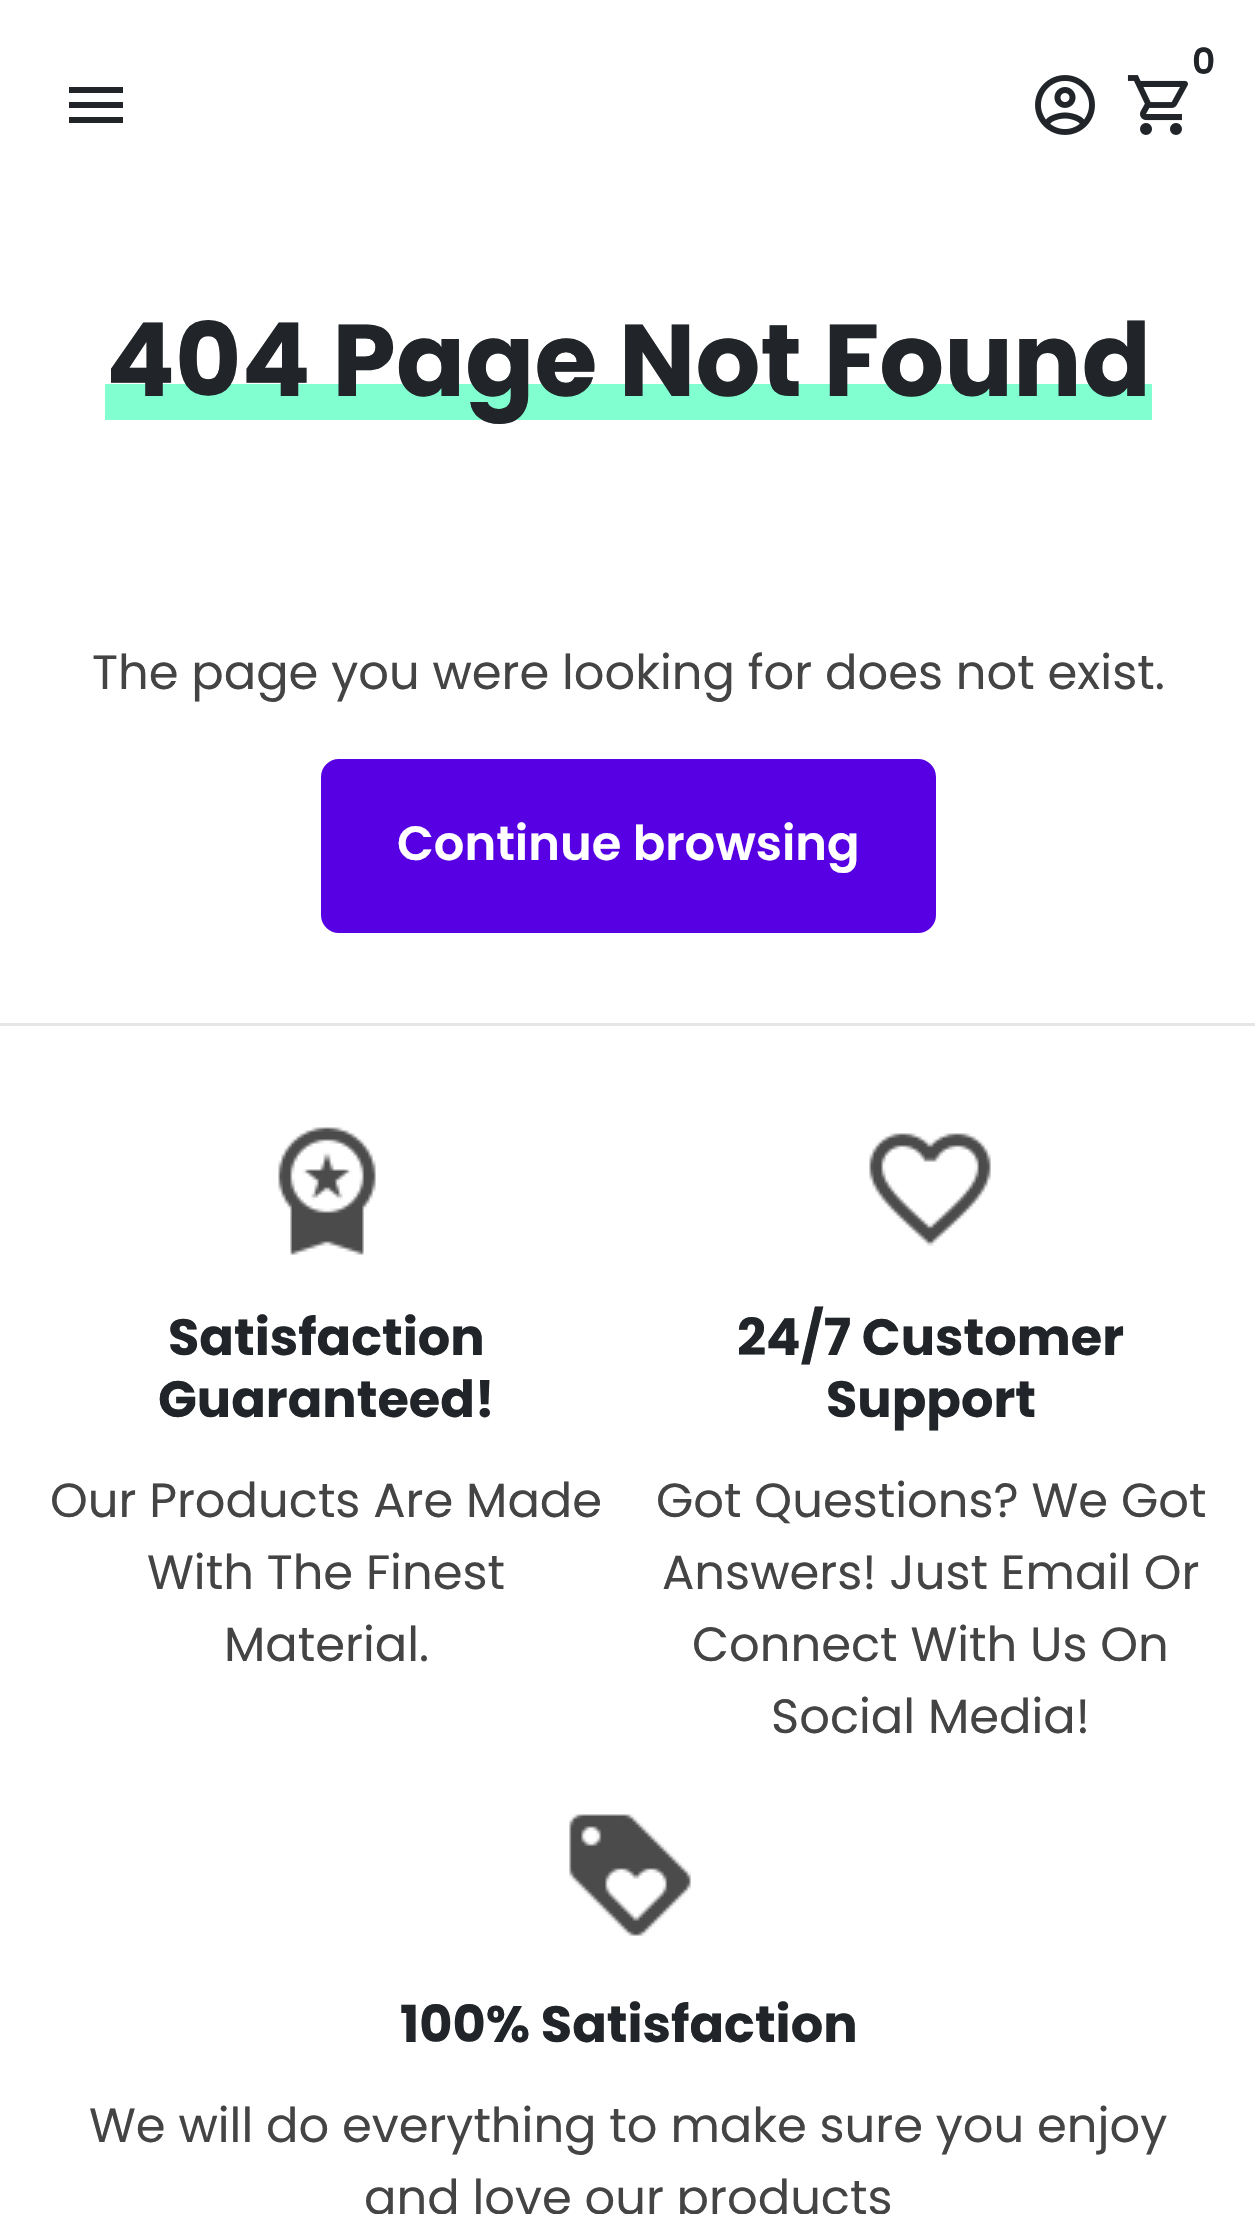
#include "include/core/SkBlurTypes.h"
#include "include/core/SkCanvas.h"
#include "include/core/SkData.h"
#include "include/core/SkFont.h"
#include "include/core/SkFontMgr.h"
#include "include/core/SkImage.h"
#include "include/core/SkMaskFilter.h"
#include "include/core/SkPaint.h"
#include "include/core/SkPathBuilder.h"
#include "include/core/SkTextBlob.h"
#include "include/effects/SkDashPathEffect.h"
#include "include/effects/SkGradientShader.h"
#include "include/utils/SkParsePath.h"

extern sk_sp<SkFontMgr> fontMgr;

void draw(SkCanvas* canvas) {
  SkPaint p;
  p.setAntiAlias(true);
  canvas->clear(SK_ColorWHITE);
  canvas->drawImageRect(SkImages::DeferredFromEncodedData(SkData::MakeFromFileName("images/1.png")), SkRect::MakeLTRB(1127, 75, 1188, 135), SkSamplingOptions());
  canvas->drawImageRect(SkImages::DeferredFromEncodedData(SkData::MakeFromFileName("images/2.png")), SkRect::MakeLTRB(1035, 75, 1095, 135), SkSamplingOptions());
  p.setColor(SkColorSetRGB(33, 37, 41));
  canvas->drawPath(SkPathBuilder().moveTo(69, 123).lineTo(123, 123).lineTo(123, 117).lineTo(69, 117).close().moveTo(69, 108).lineTo(123, 108).lineTo(123, 102).lineTo(69, 102).close().moveTo(69, 87).lineTo(69, 93).lineTo(123, 93).lineTo(123, 87).close().detach(), p);
  p.setColor(SkColorSetRGB(129, 255, 209));
  canvas->drawRect(SkRect::MakeLTRB(105, 384, 1152, 420), p);
  p.setColor(SkColorSetRGB(86, 0, 227));
  canvas->drawRoundRect(SkRect::MakeLTRB(322.5f, 760.5f, 934.5f, 931.5f), 16.5f, 16.5f, p);
  p.setStyle(SkPaint::kStroke_Style);
  p.setStrokeWidth(3);
  canvas->drawRoundRect(SkRect::MakeLTRB(322.5f, 760.5f, 934.5f, 931.5f), 16.5f, 16.5f, p);
  p.setStyle(SkPaint::kFill_Style);
  p.setColor(SkColorSetRGB(229, 229, 229));
  canvas->drawRect(SkRect::MakeLTRB(0, 1023, 1255, 1026), p);
  canvas->drawImageRect(SkImages::DeferredFromEncodedData(SkData::MakeFromFileName("images/3.png")), SkRect::MakeLTRB(278, 1127, 376, 1255), SkSamplingOptions());
  canvas->drawImageRect(SkImages::DeferredFromEncodedData(SkData::MakeFromFileName("images/4.png")), SkRect::MakeLTRB(869, 1133, 991, 1246), SkSamplingOptions());
  canvas->drawImageRect(SkImages::DeferredFromEncodedData(SkData::MakeFromFileName("images/5.png")), SkRect::MakeLTRB(569, 1814, 691, 1936), SkSamplingOptions());
  SkFont font1(fontMgr->matchFamilyStyle("Poppins", SkFontStyle(600, SkFontStyle::kNormal_Width, SkFontStyle::kUpright_Slant)), 36);
  font1.setSubpixel(true);
  p.setColor(SkColorSetRGB(33, 37, 41));
  canvas->drawString("0", 1192, 74, font1, p);
  SkFont font2(fontMgr->matchFamilyStyle("Poppins", SkFontStyle::Bold()), 102);
  font2.setSubpixel(true);
  canvas->drawString("404 Page Not Found", 106, 396, font2, p);
  SkFont font3(fontMgr->matchFamilyStyle("Poppins", SkFontStyle::Normal()), 48);
  font3.setSubpixel(true);
  p.setColor(SkColorSetRGB(68, 68, 68));
  canvas->drawString("The page you were looking for does not exist.", 92, 689, font3, p);
  SkFont font4(fontMgr->matchFamilyStyle("Poppins", SkFontStyle(600, SkFontStyle::kNormal_Width, SkFontStyle::kUpright_Slant)), 48);
  font4.setSubpixel(true);
  p.setColor(SK_ColorWHITE);
  canvas->drawString("Continue browsing", 397, 860, font4, p);
  SkFont font5(fontMgr->matchFamilyStyle("Poppins", SkFontStyle::Bold()), 51);
  font5.setSubpixel(true);
  p.setColor(SkColorSetRGB(33, 37, 41));
  canvas->drawString("Satisfaction", 168, 1355, font5, p);
  canvas->drawString("Guaranteed!", 158, 1417, font5, p);
  p.setColor(SkColorSetRGB(68, 68, 68));
  canvas->drawString("Our Products Are Made", 50, 1517, font3, p);
  canvas->drawString("With The Finest", 147, 1589, font3, p);
  canvas->drawString("Material.", 224, 1661, font3, p);
  p.setColor(SkColorSetRGB(33, 37, 41));
  canvas->drawString("24/7 Customer", 737, 1355, font5, p);
  canvas->drawString("Support", 826, 1417, font5, p);
  p.setColor(SkColorSetRGB(68, 68, 68));
  canvas->drawString("Got Questions? We Got", 656, 1517, font3, p);
  canvas->drawString("Answers! Just Email Or", 662, 1589, font3, p);
  canvas->drawString("Connect With Us On", 692, 1661, font3, p);
  canvas->drawString("Social Media!", 771, 1733, font3, p);
  p.setColor(SkColorSetRGB(33, 37, 41));
  canvas->drawString("100% Satisfaction", 400, 2042, font5, p);
  p.setColor(SkColorSetRGB(68, 68, 68));
  canvas->drawString("We will do everything to make sure you enjoy", 89, 2142, font3, p);
  canvas->drawString("and love our products", 364, 2214, font3, p);
}
